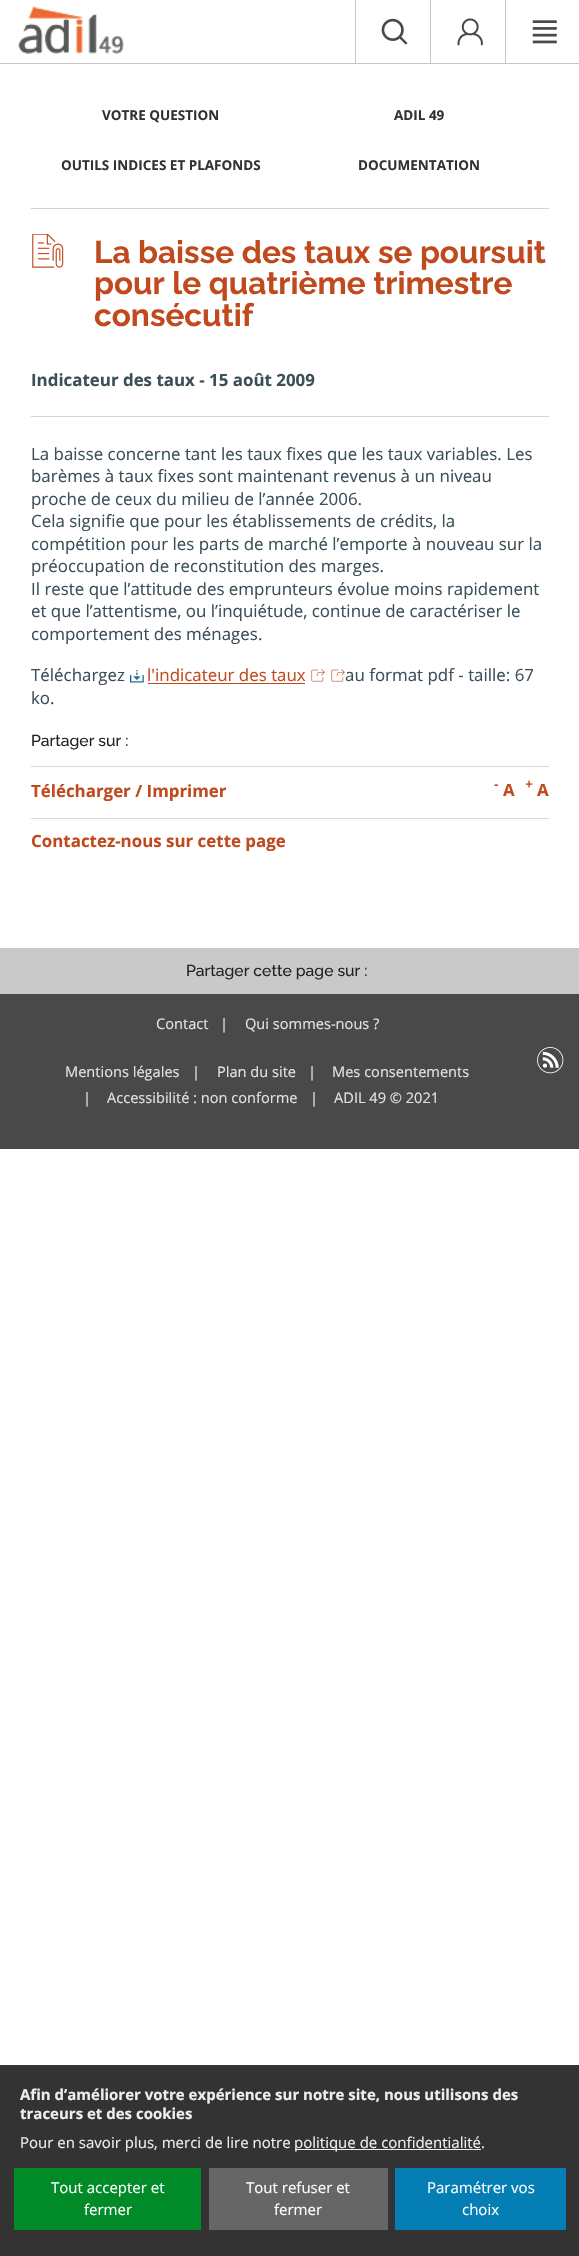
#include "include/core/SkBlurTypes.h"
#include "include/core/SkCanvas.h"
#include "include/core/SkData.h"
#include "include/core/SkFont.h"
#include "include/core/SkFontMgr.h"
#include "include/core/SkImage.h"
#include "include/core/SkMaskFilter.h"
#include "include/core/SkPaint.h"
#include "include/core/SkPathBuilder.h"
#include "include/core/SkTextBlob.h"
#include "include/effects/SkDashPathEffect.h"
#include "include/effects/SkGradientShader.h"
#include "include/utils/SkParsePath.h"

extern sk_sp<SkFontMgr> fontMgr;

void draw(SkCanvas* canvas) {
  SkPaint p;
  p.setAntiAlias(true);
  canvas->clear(SK_ColorWHITE);
  p.setColor(SkColorSetRGB(198, 198, 198));
  canvas->drawRect(SkRect::MakeLTRB(0, 63, 579, 64), p);
  canvas->drawImageRect(SkImages::DeferredFromEncodedData(SkData::MakeFromFileName("images/1.png")), SkRect::MakeLTRB(18, 6, 124, 54), SkSamplingOptions());
  canvas->drawRect(SkRect::MakeLTRB(355, 0, 356, 63), p);
  canvas->drawImageRect(SkImages::DeferredFromEncodedData(SkData::MakeFromFileName("images/2.png")), SkRect::MakeLTRB(381, 18, 408, 45), SkSamplingOptions());
  canvas->drawRect(SkRect::MakeLTRB(430, 0, 431, 63), p);
  canvas->drawImageRect(SkImages::DeferredFromEncodedData(SkData::MakeFromFileName("images/3.png")), SkRect::MakeLTRB(457, 18, 483, 46), SkSamplingOptions());
  canvas->drawRect(SkRect::MakeLTRB(505, 0, 506, 63), p);
  canvas->drawImageRect(SkImages::DeferredFromEncodedData(SkData::MakeFromFileName("images/4.png")), SkRect::MakeLTRB(532, 20, 557, 44), SkSamplingOptions());
  p.setColor(SkColorSetRGB(211, 211, 211));
  canvas->drawRect(SkRect::MakeLTRB(31, 208, 549, 209), p);
  canvas->drawImageRect(SkImages::DeferredFromEncodedData(SkData::MakeFromFileName("images/5.png")), SkRect::MakeLTRB(32, 234, 64, 268), SkSamplingOptions());
  p.setColor(SkColorSetRGB(212, 212, 212));
  canvas->drawRect(SkRect::MakeLTRB(31, 416, 549, 417), p);
  canvas->drawImageRect(SkImages::DeferredFromEncodedData(SkData::MakeFromFileName("images/6.png")), SkRect::MakeLTRB(130, 670, 144, 683), SkSamplingOptions());
  p.setColor(SkColorSetRGB(192, 73, 29));
  canvas->drawRect(SkRect::MakeLTRB(148, 683, 305, 684), p);
  canvas->drawImageRect(SkImages::DeferredFromEncodedData(SkData::MakeFromFileName("images/7.png")), SkRect::MakeLTRB(311, 669, 325, 682), SkSamplingOptions());
  canvas->drawImageRect(SkImages::DeferredFromEncodedData(SkData::MakeFromFileName("images/7.png")), SkRect::MakeLTRB(331, 669, 345, 682), SkSamplingOptions());
  p.setColor(SkColorSetRGB(204, 222, 229));
  canvas->drawRect(SkRect::MakeLTRB(31, 766, 549, 767), p);
  canvas->drawRect(SkRect::MakeLTRB(31, 818, 549, 819), p);
  p.setColor(SkColorSetRGB(201, 201, 201));
  canvas->drawRect(SkRect::MakeLTRB(0, 948, 579, 994), p);
  p.setColor(SkColorSetRGB(73, 73, 73));
  canvas->drawRect(SkRect::MakeLTRB(0, 994, 579, 1149), p);
  canvas->drawImageRect(SkImages::DeferredFromEncodedData(SkData::MakeFromFileName("images/8.png")), SkRect::MakeLTRB(537, 1047, 564, 1074), SkSamplingOptions());
  p.setColor(SkColorSetRGB(51, 51, 51));
  canvas->drawRect(SkRect::MakeLTRB(0, 2065, 579, 2256), p);
  p.setColor(SkColorSetRGB(238, 238, 238));
  canvas->drawRect(SkRect::MakeLTRB(295, 2149, 481, 2150), p);
  p.setColor(SkColorSetRGB(0, 138, 40));
  canvas->drawRect(SkRect::MakeLTRB(14, 2168, 201, 2230), p);
  p.setColor(SkColorSetRGB(102, 102, 102));
  canvas->drawRect(SkRect::MakeLTRB(209, 2168, 388, 2230), p);
  p.setColor(SkColorSetRGB(5, 126, 182));
  canvas->drawRect(SkRect::MakeLTRB(395, 2168, 566, 2230), p);
  SkFont font1(fontMgr->matchFamilyStyle("Open Sans", SkFontStyle::Bold()), 13.5f);
  font1.setSubpixel(true);
  p.setColor(SkColorSetRGB(50, 50, 50));
  canvas->drawString("VOTRE QUESTION", 102, 120, font1, p);
  canvas->drawString("ADIL 49", 394, 120, font1, p);
  canvas->drawString("OUTILS INDICES ET PLAFONDS", 61, 170, font1, p);
  canvas->drawString("DOCUMENTATION", 358, 170, font1, p);
  SkFont font2(fontMgr->matchFamilyStyle("Raleway", SkFontStyle(100, SkFontStyle::kNormal_Width, SkFontStyle::kUpright_Slant)), 31.5f);
  font2.setSubpixel(true);
  p.setColor(SkColorSetRGB(192, 73, 29));
  canvas->drawString("La baisse des taux se poursuit", 94, 263, font2, p);
  canvas->drawString("pour le quatrième trimestre", 94, 294, font2, p);
  canvas->drawString("consécutif", 94, 326, font2, p);
  SkFont font3(fontMgr->matchFamilyStyle("Open Sans", SkFontStyle::Bold()), 16.9f);
  font3.setSubpixel(true);
  p.setColor(SkColorSetRGB(59, 79, 88));
  canvas->drawString("Indicateur des taux - 15 août 2009", 31, 386, font3, p);
  SkFont font4(fontMgr->matchFamilyStyle("Open Sans", SkFontStyle::Normal()), 16.9f);
  font4.setSubpixel(true);
  canvas->drawString("La baisse concerne tant les taux fixes que les taux variables. Les", 31, 460, font4, p);
  canvas->drawString("barèmes à taux fixes sont maintenant revenus à un niveau", 31, 482, font4, p);
  canvas->drawString("proche de ceux du milieu de l’année 2006.", 31, 505, font4, p);
  canvas->drawString("Cela signifie que pour les établissements de crédits, la", 31, 527, font4, p);
  canvas->drawString("compétition pour les parts de marché l’emporte à nouveau sur la", 31, 550, font4, p);
  canvas->drawString("préoccupation de reconstitution des marges.", 31, 572, font4, p);
  canvas->drawString("Il reste que l’attitude des emprunteurs évolue moins rapidement", 31, 595, font4, p);
  canvas->drawString("et que l’attentisme, ou l’inquiétude, continue de caractériser le", 31, 617, font4, p);
  canvas->drawString("comportement des ménages.", 31, 640, font4, p);
  canvas->drawString("Téléchargez", 31, 681, font4, p);
  p.setColor(SkColorSetRGB(192, 73, 29));
  canvas->drawString("l'indicateur des taux", 147, 681, font4, p);
  p.setColor(SkColorSetRGB(59, 79, 88));
  canvas->drawString("au format pdf - taille: 67", 345, 681, font4, p);
  canvas->drawString("ko.", 31, 704, font4, p);
  SkFont font5(fontMgr->matchFamilyStyle("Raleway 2", SkFontStyle(100, SkFontStyle::kNormal_Width, SkFontStyle::kUpright_Slant)), 15.75f);
  font5.setSubpixel(true);
  p.setColor(SkColorSetRGB(34, 34, 34));
  canvas->drawString("Partager sur :", 31, 746, font5, p);
  p.setColor(SkColorSetRGB(192, 73, 29));
  canvas->drawString("Télécharger / Imprimer", 31, 797, font3, p);
  SkFont font6(fontMgr->matchFamilyStyle("Open Sans", SkFontStyle::BoldItalic()), 13.5f);
  font6.setSubpixel(true);
  canvas->drawString("-", 494, 789, font6, p);
  canvas->drawString("A", 503, 796, font3, p);
  canvas->drawString("+", 525, 789, font6, p);
  canvas->drawString("A", 537, 796, font3, p);
  canvas->drawString("Contactez-nous sur cette page", 31, 847, font3, p);
  p.setColor(SkColorSetRGB(34, 34, 34));
  canvas->drawString("Partager cette page sur :", 186, 976, font5, p);
  SkFont font7(fontMgr->matchFamilyStyle("Open Sans", SkFontStyle::Normal()), 14.6f);
  font7.setSubpixel(true);
  p.setColor(SkColorSetRGB(226, 226, 226));
  canvas->drawString("Contact", 156, 1029, font7, p);
  canvas->drawString("|", 220, 1029, font7, p);
  canvas->drawString("Qui sommes-nous ?", 245, 1029, font7, p);
  canvas->drawString("Mentions légales", 65, 1077, font7, p);
  canvas->drawString("|", 192, 1077, font7, p);
  canvas->drawString("Plan du site", 217, 1077, font7, p);
  canvas->drawString("|", 308, 1077, font7, p);
  canvas->drawString("Mes consentements", 332, 1077, font7, p);
  canvas->drawString("|", 83, 1103, font7, p);
  canvas->drawString("Accessibilité : non conforme", 107, 1103, font7, p);
  canvas->drawString("|", 310, 1103, font7, p);
  canvas->drawString("ADIL 49 © 2021", 334, 1103, font7, p);
  SkFont font8(fontMgr->matchFamilyStyle("Open Sans", SkFontStyle::Bold()), 15);
  font8.setSubpixel(true);
  p.setColor(SkColorSetRGB(238, 238, 238));
  canvas->drawString("Afin d’améliorer votre expérience sur notre site, nous utilisons des", 20, 2100, font8, p);
  canvas->drawString("traceurs et des cookies", 20, 2119, font8, p);
  SkFont font9(fontMgr->matchFamilyStyle("Open Sans", SkFontStyle::Normal()), 15);
  font9.setSubpixel(true);
  canvas->drawString("Pour en savoir plus, merci de lire notre", 20, 2148, font9, p);
  canvas->drawString("politique de confidentialité.", 294, 2148, font9, p);
  p.setColor(SK_ColorWHITE);
  canvas->drawString("Tout accepter et", 51, 2193, font9, p);
  canvas->drawString("fermer", 84, 2215, font9, p);
  canvas->drawString("Tout refuser et", 246, 2193, font9, p);
  canvas->drawString("fermer", 274, 2215, font9, p);
  canvas->drawString("Paramétrer vos", 427, 2193, font9, p);
  canvas->drawString("choix", 462, 2215, font9, p);
}
